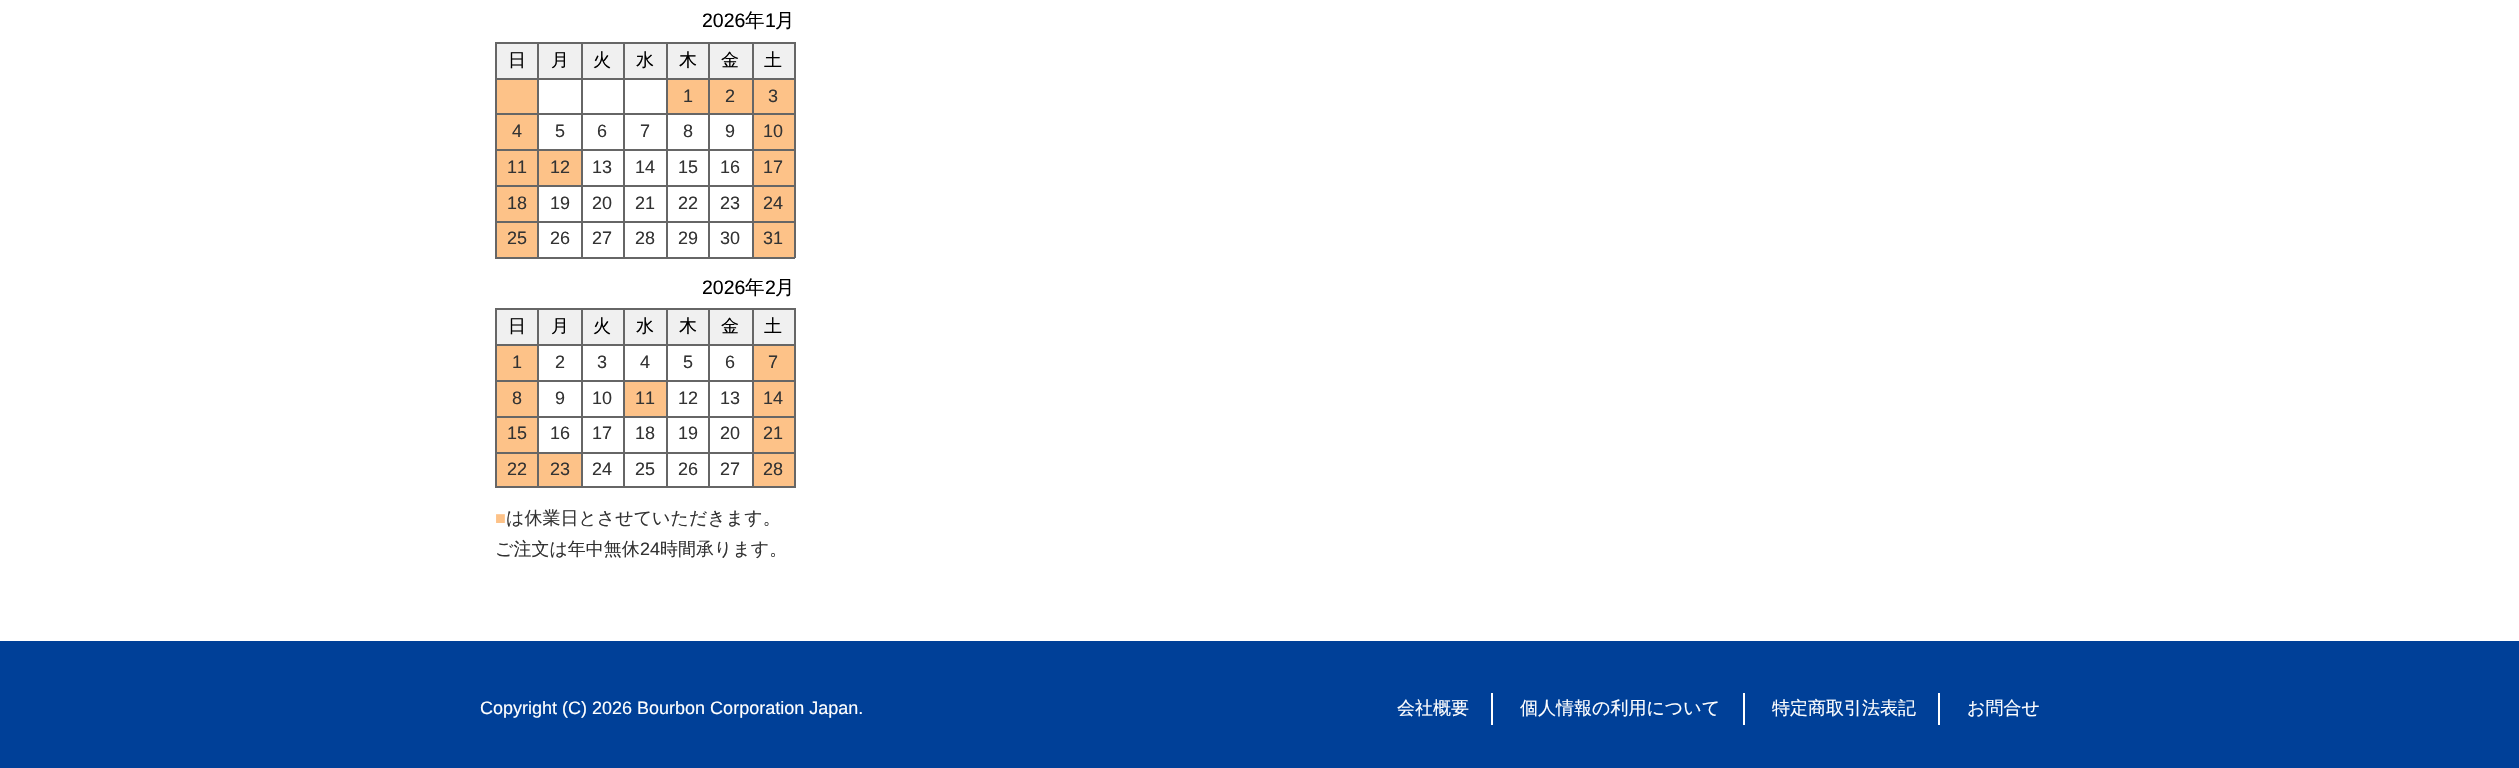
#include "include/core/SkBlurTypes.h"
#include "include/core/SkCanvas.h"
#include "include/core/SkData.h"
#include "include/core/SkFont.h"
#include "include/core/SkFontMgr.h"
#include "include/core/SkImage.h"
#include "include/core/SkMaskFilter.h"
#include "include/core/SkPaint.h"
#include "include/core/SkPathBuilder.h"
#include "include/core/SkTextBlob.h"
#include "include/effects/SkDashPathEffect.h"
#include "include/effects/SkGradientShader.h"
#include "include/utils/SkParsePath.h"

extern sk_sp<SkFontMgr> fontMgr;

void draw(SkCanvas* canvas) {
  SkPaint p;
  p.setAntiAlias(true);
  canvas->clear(SK_ColorWHITE);
  p.setColor(SkColorSetRGB(102, 102, 102));
  canvas->drawRect(SkRect::MakeLTRB(495, 42, 795, 44), p);
  canvas->drawRect(SkRect::MakeLTRB(794, 42, 796, 258), p);
  canvas->drawRect(SkRect::MakeLTRB(495, 257, 795, 259), p);
  canvas->drawRect(SkRect::MakeLTRB(495, 42, 497, 258), p);
  p.setColor(SkColorSetRGB(240, 240, 240));
  canvas->drawRect(SkRect::MakeLTRB(497, 44, 537, 78), p);
  canvas->drawRect(SkRect::MakeLTRB(539, 44, 581, 78), p);
  p.setColor(SkColorSetRGB(102, 102, 102));
  canvas->drawRect(SkRect::MakeLTRB(752, 78, 795, 80), p);
  canvas->drawRect(SkRect::MakeLTRB(752, 113, 795, 115), p);
  canvas->drawRect(SkRect::MakeLTRB(752, 149, 795, 151), p);
  canvas->drawRect(SkRect::MakeLTRB(752, 185, 795, 187), p);
  canvas->drawRect(SkRect::MakeLTRB(752, 221, 795, 223), p);
  canvas->drawRect(SkRect::MakeLTRB(752, 221, 754, 258), p);
  canvas->drawRect(SkRect::MakeLTRB(708, 221, 753, 223), p);
  canvas->drawRect(SkRect::MakeLTRB(752, 185, 754, 222), p);
  canvas->drawRect(SkRect::MakeLTRB(708, 185, 753, 187), p);
  canvas->drawRect(SkRect::MakeLTRB(752, 149, 754, 186), p);
  canvas->drawRect(SkRect::MakeLTRB(708, 149, 753, 151), p);
  canvas->drawRect(SkRect::MakeLTRB(752, 113, 754, 150), p);
  canvas->drawRect(SkRect::MakeLTRB(708, 113, 753, 115), p);
  canvas->drawRect(SkRect::MakeLTRB(752, 78, 754, 114), p);
  canvas->drawRect(SkRect::MakeLTRB(708, 78, 753, 80), p);
  canvas->drawRect(SkRect::MakeLTRB(708, 221, 710, 258), p);
  canvas->drawRect(SkRect::MakeLTRB(666, 221, 710, 223), p);
  canvas->drawRect(SkRect::MakeLTRB(708, 185, 710, 222), p);
  canvas->drawRect(SkRect::MakeLTRB(666, 185, 710, 187), p);
  canvas->drawRect(SkRect::MakeLTRB(708, 149, 710, 186), p);
  canvas->drawRect(SkRect::MakeLTRB(666, 149, 710, 151), p);
  canvas->drawRect(SkRect::MakeLTRB(708, 113, 710, 150), p);
  canvas->drawRect(SkRect::MakeLTRB(666, 113, 710, 115), p);
  canvas->drawRect(SkRect::MakeLTRB(708, 78, 710, 114), p);
  canvas->drawRect(SkRect::MakeLTRB(666, 78, 710, 80), p);
  canvas->drawRect(SkRect::MakeLTRB(666, 221, 668, 258), p);
  canvas->drawRect(SkRect::MakeLTRB(623, 221, 668, 223), p);
  canvas->drawRect(SkRect::MakeLTRB(666, 185, 668, 222), p);
  canvas->drawRect(SkRect::MakeLTRB(623, 185, 668, 187), p);
  canvas->drawRect(SkRect::MakeLTRB(666, 149, 668, 186), p);
  canvas->drawRect(SkRect::MakeLTRB(623, 149, 668, 151), p);
  canvas->drawRect(SkRect::MakeLTRB(666, 113, 668, 150), p);
  canvas->drawRect(SkRect::MakeLTRB(623, 113, 668, 115), p);
  canvas->drawRect(SkRect::MakeLTRB(666, 78, 668, 114), p);
  canvas->drawRect(SkRect::MakeLTRB(623, 78, 668, 80), p);
  canvas->drawRect(SkRect::MakeLTRB(623, 221, 625, 258), p);
  canvas->drawRect(SkRect::MakeLTRB(581, 221, 624, 223), p);
  canvas->drawRect(SkRect::MakeLTRB(623, 185, 625, 222), p);
  canvas->drawRect(SkRect::MakeLTRB(581, 185, 624, 187), p);
  canvas->drawRect(SkRect::MakeLTRB(623, 149, 625, 186), p);
  canvas->drawRect(SkRect::MakeLTRB(581, 149, 624, 151), p);
  canvas->drawRect(SkRect::MakeLTRB(623, 113, 625, 150), p);
  canvas->drawRect(SkRect::MakeLTRB(581, 113, 624, 115), p);
  canvas->drawRect(SkRect::MakeLTRB(623, 78, 625, 114), p);
  canvas->drawRect(SkRect::MakeLTRB(581, 78, 624, 80), p);
  canvas->drawRect(SkRect::MakeLTRB(581, 221, 583, 258), p);
  canvas->drawRect(SkRect::MakeLTRB(537, 221, 582, 223), p);
  canvas->drawRect(SkRect::MakeLTRB(581, 185, 583, 222), p);
  canvas->drawRect(SkRect::MakeLTRB(537, 185, 582, 187), p);
  canvas->drawRect(SkRect::MakeLTRB(581, 149, 583, 186), p);
  canvas->drawRect(SkRect::MakeLTRB(537, 149, 582, 151), p);
  canvas->drawRect(SkRect::MakeLTRB(581, 113, 583, 150), p);
  canvas->drawRect(SkRect::MakeLTRB(537, 113, 582, 115), p);
  canvas->drawRect(SkRect::MakeLTRB(581, 78, 583, 114), p);
  canvas->drawRect(SkRect::MakeLTRB(537, 78, 582, 80), p);
  canvas->drawRect(SkRect::MakeLTRB(537, 221, 539, 258), p);
  canvas->drawRect(SkRect::MakeLTRB(495, 221, 539, 223), p);
  canvas->drawRect(SkRect::MakeLTRB(537, 185, 539, 222), p);
  canvas->drawRect(SkRect::MakeLTRB(495, 185, 539, 187), p);
  canvas->drawRect(SkRect::MakeLTRB(537, 149, 539, 186), p);
  canvas->drawRect(SkRect::MakeLTRB(495, 149, 539, 151), p);
  canvas->drawRect(SkRect::MakeLTRB(537, 113, 539, 150), p);
  canvas->drawRect(SkRect::MakeLTRB(495, 113, 539, 115), p);
  canvas->drawRect(SkRect::MakeLTRB(537, 78, 539, 114), p);
  canvas->drawRect(SkRect::MakeLTRB(495, 78, 539, 80), p);
  canvas->drawRect(SkRect::MakeLTRB(537, 42, 539, 80), p);
  p.setColor(SkColorSetRGB(240, 240, 240));
  canvas->drawRect(SkRect::MakeLTRB(583, 44, 623, 78), p);
  p.setColor(SkColorSetRGB(102, 102, 102));
  canvas->drawRect(SkRect::MakeLTRB(581, 42, 583, 80), p);
  p.setColor(SkColorSetRGB(240, 240, 240));
  canvas->drawRect(SkRect::MakeLTRB(625, 44, 666, 78), p);
  p.setColor(SkColorSetRGB(102, 102, 102));
  canvas->drawRect(SkRect::MakeLTRB(623, 42, 625, 80), p);
  p.setColor(SkColorSetRGB(240, 240, 240));
  canvas->drawRect(SkRect::MakeLTRB(668, 44, 708, 78), p);
  p.setColor(SkColorSetRGB(102, 102, 102));
  canvas->drawRect(SkRect::MakeLTRB(666, 42, 668, 80), p);
  p.setColor(SkColorSetRGB(240, 240, 240));
  canvas->drawRect(SkRect::MakeLTRB(710, 44, 752, 78), p);
  p.setColor(SkColorSetRGB(102, 102, 102));
  canvas->drawRect(SkRect::MakeLTRB(708, 42, 710, 80), p);
  p.setColor(SkColorSetRGB(240, 240, 240));
  canvas->drawRect(SkRect::MakeLTRB(754, 44, 794, 78), p);
  p.setColor(SkColorSetRGB(102, 102, 102));
  canvas->drawRect(SkRect::MakeLTRB(752, 42, 754, 80), p);
  p.setColor(SkColorSetRGB(253, 194, 136));
  canvas->drawRect(SkRect::MakeLTRB(497, 80, 537, 113), p);
  canvas->drawRect(SkRect::MakeLTRB(668, 80, 708, 113), p);
  canvas->drawRect(SkRect::MakeLTRB(710, 80, 752, 113), p);
  canvas->drawRect(SkRect::MakeLTRB(754, 80, 794, 113), p);
  canvas->drawRect(SkRect::MakeLTRB(497, 115, 537, 149), p);
  canvas->drawRect(SkRect::MakeLTRB(754, 115, 794, 149), p);
  canvas->drawRect(SkRect::MakeLTRB(497, 151, 537, 185), p);
  canvas->drawRect(SkRect::MakeLTRB(539, 151, 581, 185), p);
  canvas->drawRect(SkRect::MakeLTRB(754, 151, 794, 185), p);
  canvas->drawRect(SkRect::MakeLTRB(497, 187, 537, 221), p);
  canvas->drawRect(SkRect::MakeLTRB(754, 187, 794, 221), p);
  canvas->drawRect(SkRect::MakeLTRB(497, 223, 537, 257), p);
  canvas->drawRect(SkRect::MakeLTRB(754, 223, 794, 257), p);
  p.setColor(SkColorSetRGB(102, 102, 102));
  canvas->drawRect(SkRect::MakeLTRB(495, 308, 795, 310), p);
  canvas->drawRect(SkRect::MakeLTRB(794, 308, 796, 488), p);
  canvas->drawRect(SkRect::MakeLTRB(495, 486, 795, 488), p);
  canvas->drawRect(SkRect::MakeLTRB(495, 308, 497, 488), p);
  p.setColor(SkColorSetRGB(240, 240, 240));
  canvas->drawRect(SkRect::MakeLTRB(497, 310, 537, 344), p);
  canvas->drawRect(SkRect::MakeLTRB(539, 310, 581, 344), p);
  p.setColor(SkColorSetRGB(102, 102, 102));
  canvas->drawRect(SkRect::MakeLTRB(752, 344, 795, 346), p);
  canvas->drawRect(SkRect::MakeLTRB(752, 380, 795, 382), p);
  canvas->drawRect(SkRect::MakeLTRB(752, 416, 795, 418), p);
  canvas->drawRect(SkRect::MakeLTRB(752, 452, 795, 454), p);
  canvas->drawRect(SkRect::MakeLTRB(752, 452, 754, 488), p);
  canvas->drawRect(SkRect::MakeLTRB(708, 452, 753, 454), p);
  canvas->drawRect(SkRect::MakeLTRB(752, 416, 754, 453), p);
  canvas->drawRect(SkRect::MakeLTRB(708, 416, 753, 418), p);
  canvas->drawRect(SkRect::MakeLTRB(752, 380, 754, 417), p);
  canvas->drawRect(SkRect::MakeLTRB(708, 380, 753, 382), p);
  canvas->drawRect(SkRect::MakeLTRB(752, 344, 754, 381), p);
  canvas->drawRect(SkRect::MakeLTRB(708, 344, 753, 346), p);
  canvas->drawRect(SkRect::MakeLTRB(708, 452, 710, 488), p);
  canvas->drawRect(SkRect::MakeLTRB(666, 452, 710, 454), p);
  canvas->drawRect(SkRect::MakeLTRB(708, 416, 710, 453), p);
  canvas->drawRect(SkRect::MakeLTRB(666, 416, 710, 418), p);
  canvas->drawRect(SkRect::MakeLTRB(708, 380, 710, 417), p);
  canvas->drawRect(SkRect::MakeLTRB(666, 380, 710, 382), p);
  canvas->drawRect(SkRect::MakeLTRB(708, 344, 710, 381), p);
  canvas->drawRect(SkRect::MakeLTRB(666, 344, 710, 346), p);
  canvas->drawRect(SkRect::MakeLTRB(666, 452, 668, 488), p);
  canvas->drawRect(SkRect::MakeLTRB(623, 452, 668, 454), p);
  canvas->drawRect(SkRect::MakeLTRB(666, 416, 668, 453), p);
  canvas->drawRect(SkRect::MakeLTRB(623, 416, 668, 418), p);
  canvas->drawRect(SkRect::MakeLTRB(666, 380, 668, 417), p);
  canvas->drawRect(SkRect::MakeLTRB(623, 380, 668, 382), p);
  canvas->drawRect(SkRect::MakeLTRB(666, 344, 668, 381), p);
  canvas->drawRect(SkRect::MakeLTRB(623, 344, 668, 346), p);
  canvas->drawRect(SkRect::MakeLTRB(623, 452, 625, 488), p);
  canvas->drawRect(SkRect::MakeLTRB(581, 452, 624, 454), p);
  canvas->drawRect(SkRect::MakeLTRB(623, 416, 625, 453), p);
  canvas->drawRect(SkRect::MakeLTRB(581, 416, 624, 418), p);
  canvas->drawRect(SkRect::MakeLTRB(623, 380, 625, 417), p);
  canvas->drawRect(SkRect::MakeLTRB(581, 380, 624, 382), p);
  canvas->drawRect(SkRect::MakeLTRB(623, 344, 625, 381), p);
  canvas->drawRect(SkRect::MakeLTRB(581, 344, 624, 346), p);
  canvas->drawRect(SkRect::MakeLTRB(581, 452, 583, 488), p);
  canvas->drawRect(SkRect::MakeLTRB(537, 452, 582, 454), p);
  canvas->drawRect(SkRect::MakeLTRB(581, 416, 583, 453), p);
  canvas->drawRect(SkRect::MakeLTRB(537, 416, 582, 418), p);
  canvas->drawRect(SkRect::MakeLTRB(581, 380, 583, 417), p);
  canvas->drawRect(SkRect::MakeLTRB(537, 380, 582, 382), p);
  canvas->drawRect(SkRect::MakeLTRB(581, 344, 583, 381), p);
  canvas->drawRect(SkRect::MakeLTRB(537, 344, 582, 346), p);
  canvas->drawRect(SkRect::MakeLTRB(537, 452, 539, 488), p);
  canvas->drawRect(SkRect::MakeLTRB(495, 452, 539, 454), p);
  canvas->drawRect(SkRect::MakeLTRB(537, 416, 539, 453), p);
  canvas->drawRect(SkRect::MakeLTRB(495, 416, 539, 418), p);
  canvas->drawRect(SkRect::MakeLTRB(537, 380, 539, 417), p);
  canvas->drawRect(SkRect::MakeLTRB(495, 380, 539, 382), p);
  canvas->drawRect(SkRect::MakeLTRB(537, 344, 539, 381), p);
  canvas->drawRect(SkRect::MakeLTRB(495, 344, 539, 346), p);
  canvas->drawRect(SkRect::MakeLTRB(537, 308, 539, 345), p);
  p.setColor(SkColorSetRGB(240, 240, 240));
  canvas->drawRect(SkRect::MakeLTRB(583, 310, 623, 344), p);
  p.setColor(SkColorSetRGB(102, 102, 102));
  canvas->drawRect(SkRect::MakeLTRB(581, 308, 583, 345), p);
  p.setColor(SkColorSetRGB(240, 240, 240));
  canvas->drawRect(SkRect::MakeLTRB(625, 310, 666, 344), p);
  p.setColor(SkColorSetRGB(102, 102, 102));
  canvas->drawRect(SkRect::MakeLTRB(623, 308, 625, 345), p);
  p.setColor(SkColorSetRGB(240, 240, 240));
  canvas->drawRect(SkRect::MakeLTRB(668, 310, 708, 344), p);
  p.setColor(SkColorSetRGB(102, 102, 102));
  canvas->drawRect(SkRect::MakeLTRB(666, 308, 668, 345), p);
  p.setColor(SkColorSetRGB(240, 240, 240));
  canvas->drawRect(SkRect::MakeLTRB(710, 310, 752, 344), p);
  p.setColor(SkColorSetRGB(102, 102, 102));
  canvas->drawRect(SkRect::MakeLTRB(708, 308, 710, 345), p);
  p.setColor(SkColorSetRGB(240, 240, 240));
  canvas->drawRect(SkRect::MakeLTRB(754, 310, 794, 344), p);
  p.setColor(SkColorSetRGB(102, 102, 102));
  canvas->drawRect(SkRect::MakeLTRB(752, 308, 754, 345), p);
  p.setColor(SkColorSetRGB(253, 194, 136));
  canvas->drawRect(SkRect::MakeLTRB(497, 346, 537, 380), p);
  canvas->drawRect(SkRect::MakeLTRB(754, 346, 794, 380), p);
  canvas->drawRect(SkRect::MakeLTRB(497, 382, 537, 416), p);
  canvas->drawRect(SkRect::MakeLTRB(625, 382, 666, 416), p);
  canvas->drawRect(SkRect::MakeLTRB(754, 382, 794, 416), p);
  canvas->drawRect(SkRect::MakeLTRB(497, 418, 537, 452), p);
  canvas->drawRect(SkRect::MakeLTRB(754, 418, 794, 452), p);
  canvas->drawRect(SkRect::MakeLTRB(497, 454, 537, 486), p);
  canvas->drawRect(SkRect::MakeLTRB(539, 454, 581, 486), p);
  canvas->drawRect(SkRect::MakeLTRB(754, 454, 794, 486), p);
  p.setColor(SkColorSetRGB(0, 64, 152));
  canvas->drawRect(SkRect::MakeLTRB(0, 641, 2519, 768), p);
  p.setColor(SK_ColorWHITE);
  canvas->drawRect(SkRect::MakeLTRB(1491, 693, 1493, 725), p);
  canvas->drawRect(SkRect::MakeLTRB(1743, 693, 1745, 725), p);
  canvas->drawRect(SkRect::MakeLTRB(1938, 693, 1940, 725), p);
  SkFont font1(fontMgr->matchFamilyStyle("Liberation Sans", SkFontStyle::Normal()), 19.5f);
  font1.setSubpixel(true);
  p.setColor(SK_ColorBLACK);
  canvas->drawString("2026", 702, 27, font1, p);
  SkFont font2(fontMgr->matchFamilyStyle("WenQuanYi Zen Hei", SkFontStyle(500, SkFontStyle::kNormal_Width, SkFontStyle::kUpright_Slant)), 19.5f);
  font2.setSubpixel(true);
  canvas->drawString("年", 745, 27, font2, p);
  canvas->drawString("1", 765, 27, font1, p);
  canvas->drawString("月", 775, 27, font2, p);
  SkFont font3(fontMgr->matchFamilyStyle("WenQuanYi Zen Hei", SkFontStyle(500, SkFontStyle::kNormal_Width, SkFontStyle::kUpright_Slant)), 18);
  font3.setSubpixel(true);
  canvas->drawString("日", 508, 66, font3, p);
  canvas->drawString("月", 551, 66, font3, p);
  canvas->drawString("火", 593, 66, font3, p);
  canvas->drawString("水", 636, 66, font3, p);
  canvas->drawString("木", 679, 66, font3, p);
  canvas->drawString("金", 721, 66, font3, p);
  canvas->drawString("土", 764, 66, font3, p);
  SkFont font4(fontMgr->matchFamilyStyle("Liberation Sans", SkFontStyle::Normal()), 18);
  font4.setSubpixel(true);
  p.setColor(SkColorSetRGB(51, 51, 51));
  canvas->drawString("1", 683, 102, font4, p);
  canvas->drawString("2", 725, 102, font4, p);
  canvas->drawString("3", 768, 102, font4, p);
  canvas->drawString("4", 512, 137, font4, p);
  canvas->drawString("5", 555, 137, font4, p);
  canvas->drawString("6", 597, 137, font4, p);
  canvas->drawString("7", 640, 137, font4, p);
  canvas->drawString("8", 683, 137, font4, p);
  canvas->drawString("9", 725, 137, font4, p);
  canvas->drawString("10", 763, 137, font4, p);
  canvas->drawString("11", 507, 173, font4, p);
  canvas->drawString("12", 550, 173, font4, p);
  canvas->drawString("13", 592, 173, font4, p);
  canvas->drawString("14", 635, 173, font4, p);
  canvas->drawString("15", 678, 173, font4, p);
  canvas->drawString("16", 720, 173, font4, p);
  canvas->drawString("17", 763, 173, font4, p);
  canvas->drawString("18", 507, 209, font4, p);
  canvas->drawString("19", 550, 209, font4, p);
  canvas->drawString("20", 592, 209, font4, p);
  canvas->drawString("21", 635, 209, font4, p);
  canvas->drawString("22", 678, 209, font4, p);
  canvas->drawString("23", 720, 209, font4, p);
  canvas->drawString("24", 763, 209, font4, p);
  canvas->drawString("25", 507, 244, font4, p);
  canvas->drawString("26", 550, 244, font4, p);
  canvas->drawString("27", 592, 244, font4, p);
  canvas->drawString("28", 635, 244, font4, p);
  canvas->drawString("29", 678, 244, font4, p);
  canvas->drawString("30", 720, 244, font4, p);
  canvas->drawString("31", 763, 244, font4, p);
  p.setColor(SK_ColorBLACK);
  canvas->drawString("2026", 702, 294, font1, p);
  canvas->drawString("年", 745, 294, font2, p);
  canvas->drawString("2", 765, 294, font1, p);
  canvas->drawString("月", 775, 294, font2, p);
  canvas->drawString("日", 508, 332, font3, p);
  canvas->drawString("月", 551, 332, font3, p);
  canvas->drawString("火", 593, 332, font3, p);
  canvas->drawString("水", 636, 332, font3, p);
  canvas->drawString("木", 679, 332, font3, p);
  canvas->drawString("金", 721, 332, font3, p);
  canvas->drawString("土", 764, 332, font3, p);
  p.setColor(SkColorSetRGB(51, 51, 51));
  canvas->drawString("1", 512, 368, font4, p);
  canvas->drawString("2", 555, 368, font4, p);
  canvas->drawString("3", 597, 368, font4, p);
  canvas->drawString("4", 640, 368, font4, p);
  canvas->drawString("5", 683, 368, font4, p);
  canvas->drawString("6", 725, 368, font4, p);
  canvas->drawString("7", 768, 368, font4, p);
  canvas->drawString("8", 512, 404, font4, p);
  canvas->drawString("9", 555, 404, font4, p);
  canvas->drawString("10", 592, 404, font4, p);
  canvas->drawString("11", 635, 404, font4, p);
  canvas->drawString("12", 678, 404, font4, p);
  canvas->drawString("13", 720, 404, font4, p);
  canvas->drawString("14", 763, 404, font4, p);
  canvas->drawString("15", 507, 439, font4, p);
  canvas->drawString("16", 550, 439, font4, p);
  canvas->drawString("17", 592, 439, font4, p);
  canvas->drawString("18", 635, 439, font4, p);
  canvas->drawString("19", 678, 439, font4, p);
  canvas->drawString("20", 720, 439, font4, p);
  canvas->drawString("21", 763, 439, font4, p);
  canvas->drawString("22", 507, 475, font4, p);
  canvas->drawString("23", 550, 475, font4, p);
  canvas->drawString("24", 592, 475, font4, p);
  canvas->drawString("25", 635, 475, font4, p);
  canvas->drawString("26", 678, 475, font4, p);
  canvas->drawString("27", 720, 475, font4, p);
  canvas->drawString("28", 763, 475, font4, p);
  p.setColor(SkColorSetRGB(253, 194, 136));
  canvas->drawString("■", 495, 524, font4, p);
  p.setColor(SkColorSetRGB(51, 51, 51));
  canvas->drawString("は休業日とさせていただきます。", 506, 524, font3, p);
  canvas->drawString("ご注文は年中無休", 495, 555, font3, p);
  canvas->drawString("24", 640, 555, font4, p);
  canvas->drawString("時間承ります。", 660, 555, font3, p);
  p.setColor(SK_ColorWHITE);
  canvas->drawString("Copyright (C) 2026 Bourbon Corporation Japan.", 480, 714, font4, p);
  canvas->drawString("会社概要", 1397, 714, font3, p);
  canvas->drawString("個人情報の利用について", 1520, 714, font3, p);
  canvas->drawString("特定商取引法表記", 1772, 714, font3, p);
  canvas->drawString("お問合せ", 1967, 714, font3, p);
}
